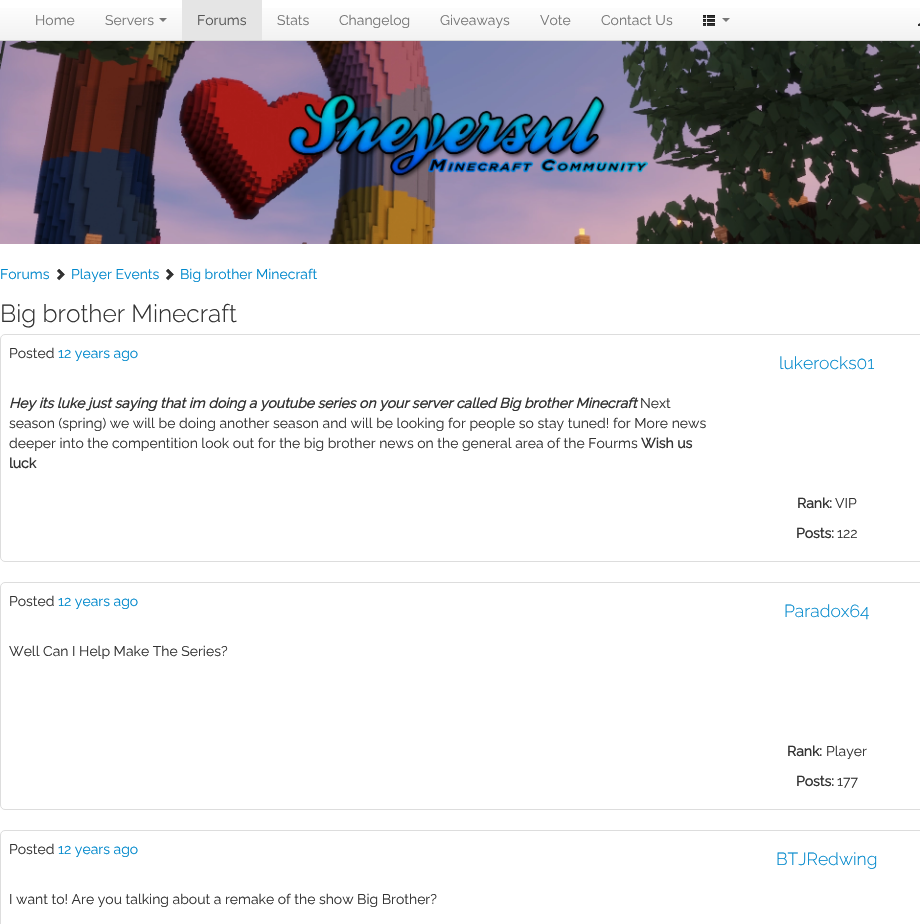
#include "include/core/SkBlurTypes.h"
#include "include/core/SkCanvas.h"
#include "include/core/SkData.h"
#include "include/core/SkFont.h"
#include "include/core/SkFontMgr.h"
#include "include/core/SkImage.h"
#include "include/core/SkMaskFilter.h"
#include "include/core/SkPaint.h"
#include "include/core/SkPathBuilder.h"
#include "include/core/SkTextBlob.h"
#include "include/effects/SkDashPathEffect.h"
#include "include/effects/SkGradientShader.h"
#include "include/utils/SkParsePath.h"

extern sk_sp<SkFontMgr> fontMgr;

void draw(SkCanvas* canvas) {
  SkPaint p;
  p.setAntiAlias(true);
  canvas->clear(SK_ColorWHITE);
  {
    const SkColor colors[] = {SK_ColorWHITE, SkColorSetRGB(242, 242, 242)};
    const float stops[] = {0, 1};
    const SkPoint ends[] = {{460, 0}, {460, 40}};
    p.setShader(SkGradientShader::MakeLinear(ends, colors, stops, 2, SkTileMode::kClamp));
    p.setAlpha(255);
  }
  canvas->drawRect(SkRect::MakeLTRB(0, 8, 920, 40), p);
  p.setShader(nullptr);
  p.setColor(SkColorSetRGB(212, 212, 212));
  canvas->drawRect(SkRect::MakeLTRB(0, 40, 920, 41), p);
  p.setColor(SkColorSetRGB(119, 119, 119));
  canvas->drawPath(SkPathBuilder().moveTo(159, 18).lineTo(167, 18).lineTo(163, 22).close().detach(), p);
  p.setColor(SkColorSetRGB(229, 229, 229));
  canvas->drawRect(SkRect::MakeLTRB(182, 0, 262, 40), p);
  canvas->drawImageRect(SkImages::DeferredFromEncodedData(SkData::MakeFromFileName("images/1.png")), SkRect::MakeLTRB(703, 15, 715, 26), SkSamplingOptions());
  p.setColor(SkColorSetRGB(119, 119, 119));
  canvas->drawPath(SkPathBuilder().moveTo(722, 18).lineTo(730, 18).lineTo(726, 22).close().detach(), p);
  canvas->drawImageRect(SkImages::DeferredFromEncodedData(SkData::MakeFromFileName("images/2.png")), SkRect::MakeLTRB(918, 23, 920, 26), SkSamplingOptions());
  canvas->drawImageRect(SkImages::DeferredFromEncodedData(SkData::MakeFromFileName("images/3.png")), SkRect::MakeLTRB(0, 41, 920, 244), SkSamplingOptions());
  canvas->drawImageRect(SkImages::DeferredFromEncodedData(SkData::MakeFromFileName("images/4.png")), SkRect::MakeLTRB(288, 93, 648, 180), SkSamplingOptions());
  canvas->drawImageRect(SkImages::DeferredFromEncodedData(SkData::MakeFromFileName("images/5.png")), SkRect::MakeLTRB(57, 269, 65, 281), SkSamplingOptions());
  canvas->drawImageRect(SkImages::DeferredFromEncodedData(SkData::MakeFromFileName("images/5.png")), SkRect::MakeLTRB(166, 269, 174, 281), SkSamplingOptions());
  p.setStyle(SkPaint::kStroke_Style);
  p.setStrokeWidth(1);
  p.setColor(SkColorSetRGB(221, 221, 221));
  canvas->drawRoundRect(SkRect::MakeLTRB(0.5f, 334.5f, 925.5f, 561.5f), 4.5f, 4.5f, p);
  canvas->drawRoundRect(SkRect::MakeLTRB(0.5f, 582.5f, 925.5f, 809.5f), 4.5f, 4.5f, p);
  canvas->drawRoundRect(SkRect::MakeLTRB(0.5f, 830.5f, 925.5f, 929.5f), 4.5f, 4.5f, p);
  SkFont font1(fontMgr->matchFamilyStyle("Raleway", SkFontStyle::Normal()), 14);
  font1.setSubpixel(true);
  p.setStyle(SkPaint::kFill_Style);
  p.setColor(SkColorSetRGB(119, 119, 119));
  canvas->drawString("Home", 35, 25, font1, p);
  canvas->drawString("Servers", 105, 25, font1, p);
  p.setColor(SkColorSetRGB(85, 85, 85));
  canvas->drawString("Forums", 197, 25, font1, p);
  p.setColor(SkColorSetRGB(119, 119, 119));
  canvas->drawString("Stats", 277, 25, font1, p);
  canvas->drawString("Changelog", 339, 25, font1, p);
  canvas->drawString("Giveaways", 440, 25, font1, p);
  canvas->drawString("Vote", 540, 25, font1, p);
  canvas->drawString("Contact Us", 601, 25, font1, p);
  p.setColor(SkColorSetRGB(0, 136, 204));
  canvas->drawString("Forums", 0, 279, font1, p);
  canvas->drawString("Player Events", 71, 279, font1, p);
  canvas->drawString("Big brother Minecraft", 180, 279, font1, p);
  SkFont font2(fontMgr->matchFamilyStyle("Raleway", SkFontStyle(300, SkFontStyle::kNormal_Width, SkFontStyle::kUpright_Slant)), 24.5f);
  font2.setSubpixel(true);
  p.setColor(SkColorSetRGB(51, 51, 51));
  canvas->drawString("Big brother Minecraft", 0, 322, font2, p);
  canvas->drawString("Posted", 9, 358, font1, p);
  p.setColor(SkColorSetRGB(0, 136, 204));
  canvas->drawString("12 years ago", 58, 358, font1, p);
  SkFont font3(fontMgr->matchFamilyStyle("Raleway", SkFontStyle::BoldItalic()), 14);
  font3.setSubpixel(true);
  p.setColor(SkColorSetRGB(51, 51, 51));
  canvas->drawString("Hey its luke just saying that im doing a youtube series on your server called Big brother Minecraft", 9, 408, font3, p);
  canvas->drawString("Next", 640, 408, font1, p);
  canvas->drawString("season (spring) we will be doing another season and will be looking for people so stay tuned! for More news", 9, 428, font1, p);
  canvas->drawString("deeper into the compentition look out for the big brother news on the general area of the Fourms", 9, 448, font1, p);
  SkFont font4(fontMgr->matchFamilyStyle("Raleway", SkFontStyle::Bold()), 14);
  font4.setSubpixel(true);
  canvas->drawString("Wish us", 641, 448, font4, p);
  canvas->drawString("luck", 9, 468, font4, p);
  SkFont font5(fontMgr->matchFamilyStyle("Raleway", SkFontStyle(300, SkFontStyle::kNormal_Width, SkFontStyle::kUpright_Slant)), 17.5f);
  font5.setSubpixel(true);
  p.setColor(SkColorSetRGB(0, 136, 204));
  canvas->drawString("lukerocks01", 779, 369, font5, p);
  p.setColor(SkColorSetRGB(51, 51, 51));
  canvas->drawString("Rank:", 797, 508, font4, p);
  canvas->drawString("VIP", 835, 508, font1, p);
  canvas->drawString("Posts:", 796, 538, font4, p);
  canvas->drawString("122", 837, 538, font1, p);
  canvas->drawString("Posted", 9, 606, font1, p);
  p.setColor(SkColorSetRGB(0, 136, 204));
  canvas->drawString("12 years ago", 58, 606, font1, p);
  p.setColor(SkColorSetRGB(51, 51, 51));
  canvas->drawString("Well Can I Help Make The Series?", 9, 656, font1, p);
  p.setColor(SkColorSetRGB(0, 136, 204));
  canvas->drawString("Paradox64", 784, 617, font5, p);
  p.setColor(SkColorSetRGB(51, 51, 51));
  canvas->drawString("Rank:", 787, 756, font4, p);
  canvas->drawString("Player", 826, 756, font1, p);
  canvas->drawString("Posts:", 796, 786, font4, p);
  canvas->drawString("177", 837, 786, font1, p);
  canvas->drawString("Posted", 9, 854, font1, p);
  p.setColor(SkColorSetRGB(0, 136, 204));
  canvas->drawString("12 years ago", 58, 854, font1, p);
  p.setColor(SkColorSetRGB(51, 51, 51));
  canvas->drawString("I want to! Are you talking about a remake of the show Big Brother?", 9, 904, font1, p);
  p.setColor(SkColorSetRGB(0, 136, 204));
  canvas->drawString("BTJRedwing", 776, 865, font5, p);
}
